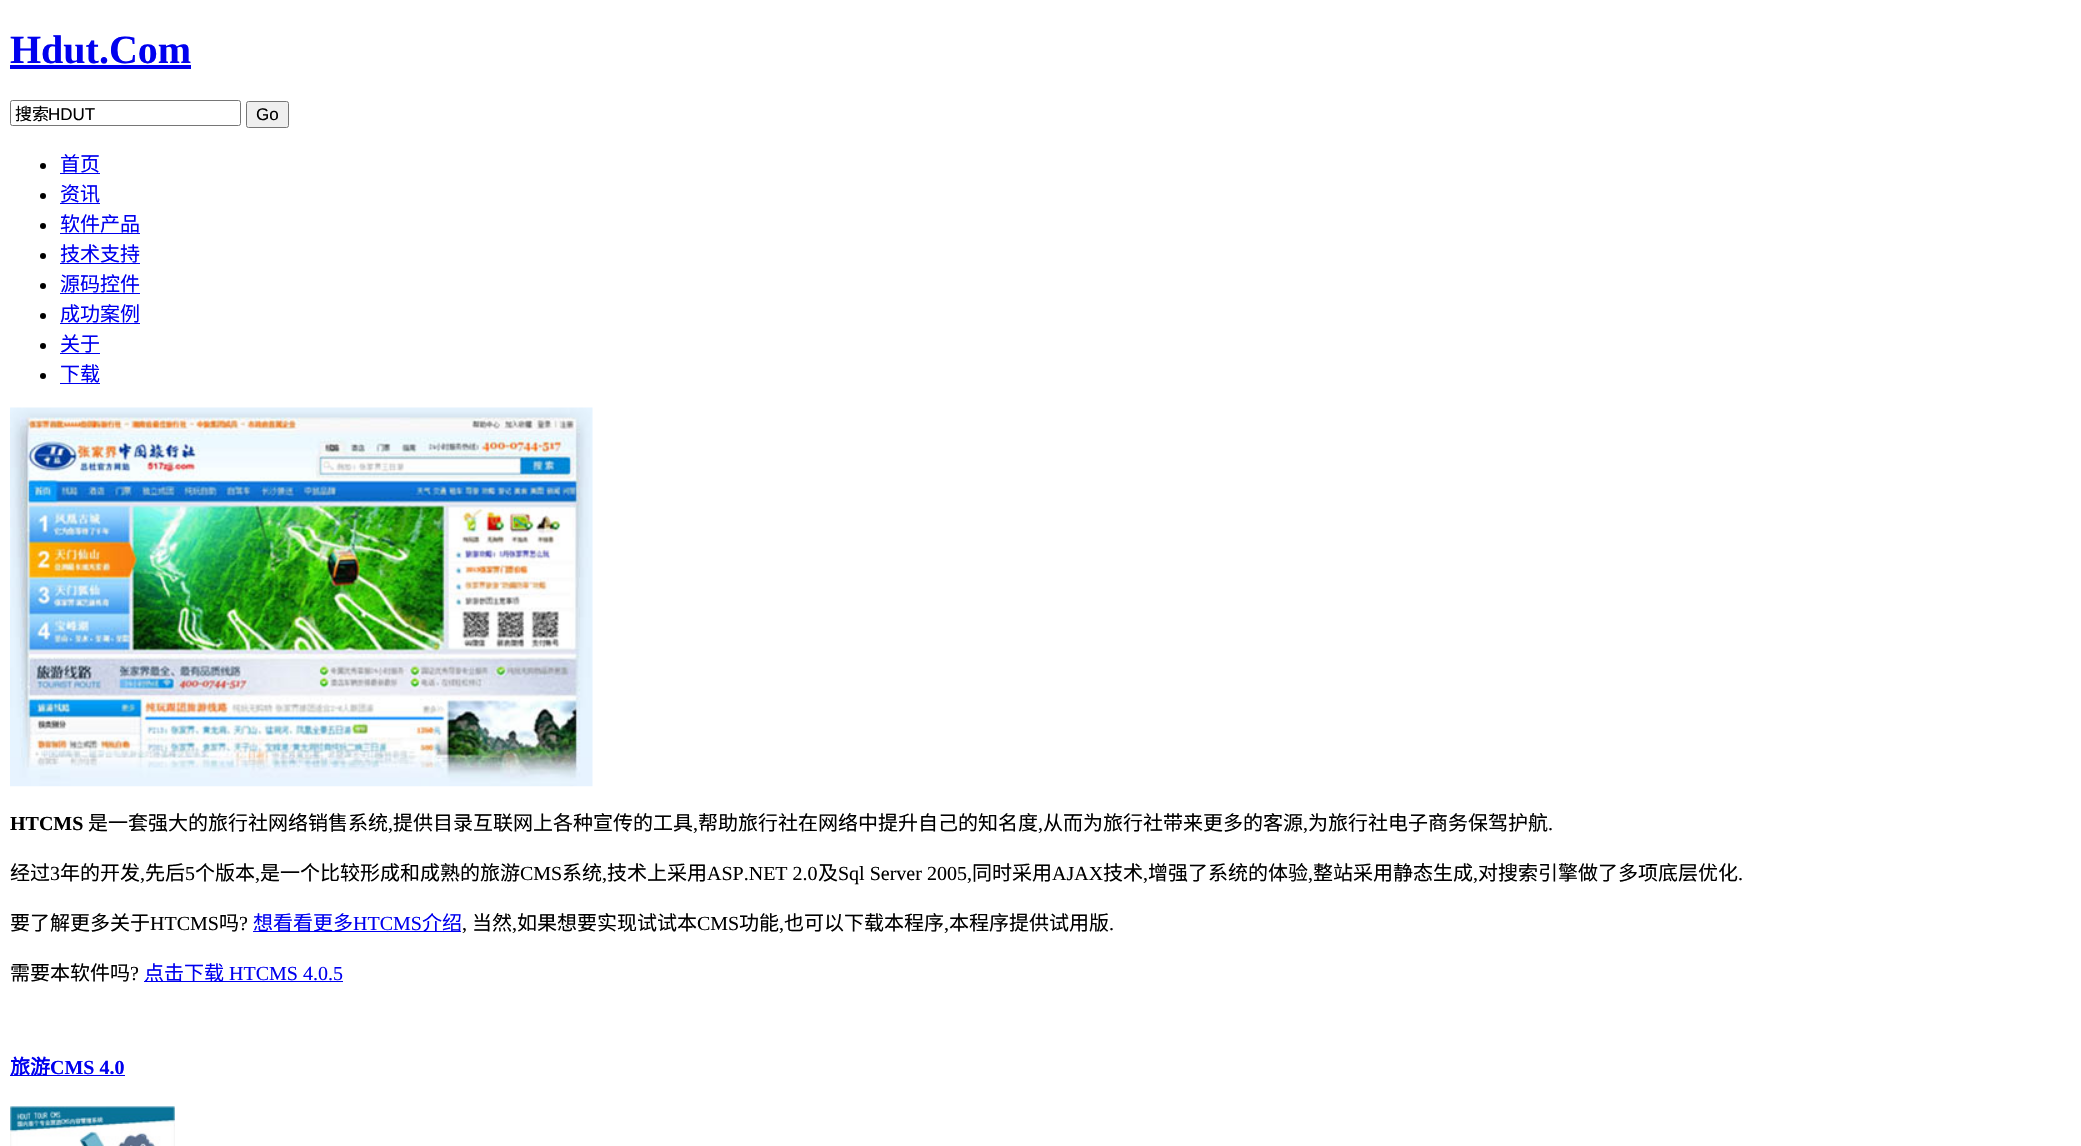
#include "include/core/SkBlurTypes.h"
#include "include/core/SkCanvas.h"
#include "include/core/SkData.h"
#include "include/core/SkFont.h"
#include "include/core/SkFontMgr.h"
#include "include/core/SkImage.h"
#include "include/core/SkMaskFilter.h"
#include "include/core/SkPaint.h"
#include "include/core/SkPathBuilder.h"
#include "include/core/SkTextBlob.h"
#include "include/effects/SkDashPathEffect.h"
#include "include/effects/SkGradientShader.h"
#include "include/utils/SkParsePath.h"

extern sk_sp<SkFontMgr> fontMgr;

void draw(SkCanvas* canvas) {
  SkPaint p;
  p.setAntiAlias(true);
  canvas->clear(SK_ColorWHITE);
  p.setColor(SkColorSetRGB(0, 0, 238));
  canvas->drawRect(SkRect::MakeLTRB(10, 65, 191, 69), p);
  p.setStyle(SkPaint::kStroke_Style);
  p.setStrokeWidth(1);
  p.setColor(SkColorSetRGB(118, 118, 118));
  canvas->drawRoundRect(SkRect::MakeLTRB(10.5f, 100.5f, 240.5f, 125.5f), 2, 2, p);
  p.setStyle(SkPaint::kFill_Style);
  p.setColor(SkColorSetRGB(239, 239, 239));
  canvas->drawRoundRect(SkRect::MakeLTRB(246.5f, 101.5f, 288.5f, 127.5f), 2, 2, p);
  p.setStyle(SkPaint::kStroke_Style);
  p.setColor(SkColorSetRGB(118, 118, 118));
  canvas->drawRoundRect(SkRect::MakeLTRB(246.5f, 101.5f, 288.5f, 127.5f), 2, 2, p);
  p.setStyle(SkPaint::kFill_Style);
  p.setColor(SK_ColorBLACK);
  canvas->drawCircle(43, 166, 3, p);
  p.setColor(SkColorSetRGB(0, 0, 238));
  canvas->drawRect(SkRect::MakeLTRB(60, 173, 100, 174), p);
  p.setColor(SK_ColorBLACK);
  canvas->drawCircle(43, 196, 3, p);
  p.setColor(SkColorSetRGB(0, 0, 238));
  canvas->drawRect(SkRect::MakeLTRB(60, 203, 100, 204), p);
  p.setColor(SK_ColorBLACK);
  canvas->drawCircle(43, 226, 3, p);
  p.setColor(SkColorSetRGB(0, 0, 238));
  canvas->drawRect(SkRect::MakeLTRB(60, 233, 140, 234), p);
  p.setColor(SK_ColorBLACK);
  canvas->drawCircle(43, 256, 3, p);
  p.setColor(SkColorSetRGB(0, 0, 238));
  canvas->drawRect(SkRect::MakeLTRB(60, 263, 140, 264), p);
  p.setColor(SK_ColorBLACK);
  canvas->drawCircle(43, 286, 3, p);
  p.setColor(SkColorSetRGB(0, 0, 238));
  canvas->drawRect(SkRect::MakeLTRB(60, 293, 140, 294), p);
  p.setColor(SK_ColorBLACK);
  canvas->drawCircle(43, 316, 3, p);
  p.setColor(SkColorSetRGB(0, 0, 238));
  canvas->drawRect(SkRect::MakeLTRB(60, 323, 140, 324), p);
  p.setColor(SK_ColorBLACK);
  canvas->drawCircle(43, 346, 3, p);
  p.setColor(SkColorSetRGB(0, 0, 238));
  canvas->drawRect(SkRect::MakeLTRB(60, 353, 100, 354), p);
  p.setColor(SK_ColorBLACK);
  canvas->drawCircle(43, 376, 3, p);
  p.setColor(SkColorSetRGB(0, 0, 238));
  canvas->drawRect(SkRect::MakeLTRB(60, 383, 100, 384), p);
  canvas->drawImageRect(SkImages::DeferredFromEncodedData(SkData::MakeFromFileName("images/1.png")), SkRect::MakeLTRB(10, 407, 593, 787), SkSamplingOptions());
  canvas->drawRect(SkRect::MakeLTRB(253, 931, 461, 932), p);
  canvas->drawRect(SkRect::MakeLTRB(144, 981, 343, 982), p);
  canvas->drawRect(SkRect::MakeLTRB(10, 1075, 125, 1076), p);
  canvas->drawImageRect(SkImages::DeferredFromEncodedData(SkData::MakeFromFileName("images/2.png")), SkRect::MakeLTRB(10, 1106, 175, 1146), SkSamplingOptions());
  SkFont font1(fontMgr->matchFamilyStyle("Liberation Serif", SkFontStyle::Bold()), 40);
  font1.setSubpixel(true);
  canvas->drawString("Hdut.Com", 10, 63, font1, p);
  SkFont font2(fontMgr->matchFamilyStyle("Noto Sans CJK SC", SkFontStyle::Normal()), 17);
  font2.setSubpixel(true);
  p.setColor(SK_ColorBLACK);
  canvas->drawString("搜索", 15, 120, font2, p);
  SkFont font3(fontMgr->matchFamilyStyle("Liberation Sans", SkFontStyle::Normal()), 17);
  font3.setSubpixel(true);
  canvas->drawString("HDUT", 48, 120, font3, p);
  canvas->drawString("Go", 256, 120, font3, p);
  SkFont font4(fontMgr->matchFamilyStyle("Noto Sans CJK SC", SkFontStyle::Normal()), 20);
  font4.setSubpixel(true);
  p.setColor(SkColorSetRGB(0, 0, 238));
  canvas->drawString("首页", 60, 171, font4, p);
  canvas->drawString("资讯", 60, 201, font4, p);
  canvas->drawString("软件产品", 60, 231, font4, p);
  canvas->drawString("技术支持", 60, 261, font4, p);
  canvas->drawString("源码控件", 60, 291, font4, p);
  canvas->drawString("成功案例", 60, 321, font4, p);
  canvas->drawString("关于", 60, 351, font4, p);
  canvas->drawString("下载", 60, 381, font4, p);
  SkFont font5(fontMgr->matchFamilyStyle("Liberation Serif", SkFontStyle::Bold()), 20);
  font5.setSubpixel(true);
  p.setColor(SK_ColorBLACK);
  canvas->drawString("HTCMS", 10, 830, font5, p);
  canvas->drawString("是一套强大的旅行社网络销售系统", 88, 830, font4, p);
  SkFont font6(fontMgr->matchFamilyStyle("Liberation Serif", SkFontStyle::Normal()), 20);
  font6.setSubpixel(true);
  canvas->drawString(",", 388, 830, font6, p);
  canvas->drawString("提供目录互联网上各种宣传的工具", 393, 830, font4, p);
  canvas->drawString(",", 693, 830, font6, p);
  canvas->drawString("帮助旅行社在网络中提升自己的知名度", 698, 830, font4, p);
  canvas->drawString(",", 1038, 830, font6, p);
  canvas->drawString("从而为旅行社带来更多的客源", 1043, 830, font4, p);
  canvas->drawString(",", 1303, 830, font6, p);
  canvas->drawString("为旅行社电子商务保驾护航", 1308, 830, font4, p);
  canvas->drawString(".", 1548, 830, font6, p);
  canvas->drawString("经过", 10, 880, font4, p);
  canvas->drawString("3", 50, 880, font6, p);
  canvas->drawString("年的开发", 60, 880, font4, p);
  canvas->drawString(",", 140, 880, font6, p);
  canvas->drawString("先后", 145, 880, font4, p);
  canvas->drawString("5", 185, 880, font6, p);
  canvas->drawString("个版本", 195, 880, font4, p);
  canvas->drawString(",", 255, 880, font6, p);
  canvas->drawString("是一个比较形成和成熟的旅游", 260, 880, font4, p);
  canvas->drawString("CMS", 520, 880, font6, p);
  canvas->drawString("系统", 562, 880, font4, p);
  canvas->drawString(",", 602, 880, font6, p);
  canvas->drawString("技术上采用", 607, 880, font4, p);
  canvas->drawString("ASP.NET 2.0", 707, 880, font6, p);
  canvas->drawString("及", 818, 880, font4, p);
  canvas->drawString("Sql Server 2005,", 838, 880, font6, p);
  canvas->drawString("同时采用", 972, 880, font4, p);
  canvas->drawString("AJAX", 1052, 880, font6, p);
  canvas->drawString("技术", 1103, 880, font4, p);
  canvas->drawString(",", 1143, 880, font6, p);
  canvas->drawString("增强了系统的体验", 1148, 880, font4, p);
  canvas->drawString(",", 1308, 880, font6, p);
  canvas->drawString("整站采用静态生成", 1313, 880, font4, p);
  canvas->drawString(",", 1473, 880, font6, p);
  canvas->drawString("对搜索引擎做了多项底层优化", 1478, 880, font4, p);
  canvas->drawString(".", 1738, 880, font6, p);
  canvas->drawString("要了解更多关于", 10, 930, font4, p);
  canvas->drawString("HTCMS", 150, 930, font6, p);
  canvas->drawString("吗", 219, 930, font4, p);
  canvas->drawString("?", 239, 930, font6, p);
  p.setColor(SkColorSetRGB(0, 0, 238));
  canvas->drawString("想看看更多", 253, 930, font4, p);
  canvas->drawString("HTCMS", 353, 930, font6, p);
  canvas->drawString("介绍", 422, 930, font4, p);
  p.setColor(SK_ColorBLACK);
  canvas->drawString(",", 462, 930, font6, p);
  canvas->drawString("当然", 472, 930, font4, p);
  canvas->drawString(",", 512, 930, font6, p);
  canvas->drawString("如果想要实现试试本", 517, 930, font4, p);
  canvas->drawString("CMS", 697, 930, font6, p);
  canvas->drawString("功能", 739, 930, font4, p);
  canvas->drawString(",", 779, 930, font6, p);
  canvas->drawString("也可以下载本程序", 784, 930, font4, p);
  canvas->drawString(",", 944, 930, font6, p);
  canvas->drawString("本程序提供试用版", 949, 930, font4, p);
  canvas->drawString(".", 1109, 930, font6, p);
  canvas->drawString("需要本软件吗", 10, 980, font4, p);
  canvas->drawString("?", 130, 980, font6, p);
  p.setColor(SkColorSetRGB(0, 0, 238));
  canvas->drawString("点击下载", 144, 980, font4, p);
  canvas->drawString("HTCMS 4.0.5", 229, 980, font6, p);
  SkFont font7(fontMgr->matchFamilyStyle("Noto Sans CJK SC", SkFontStyle::Bold()), 20);
  font7.setSubpixel(true);
  canvas->drawString("旅游", 10, 1074, font7, p);
  canvas->drawString("CMS 4.0", 50, 1074, font5, p);
}
